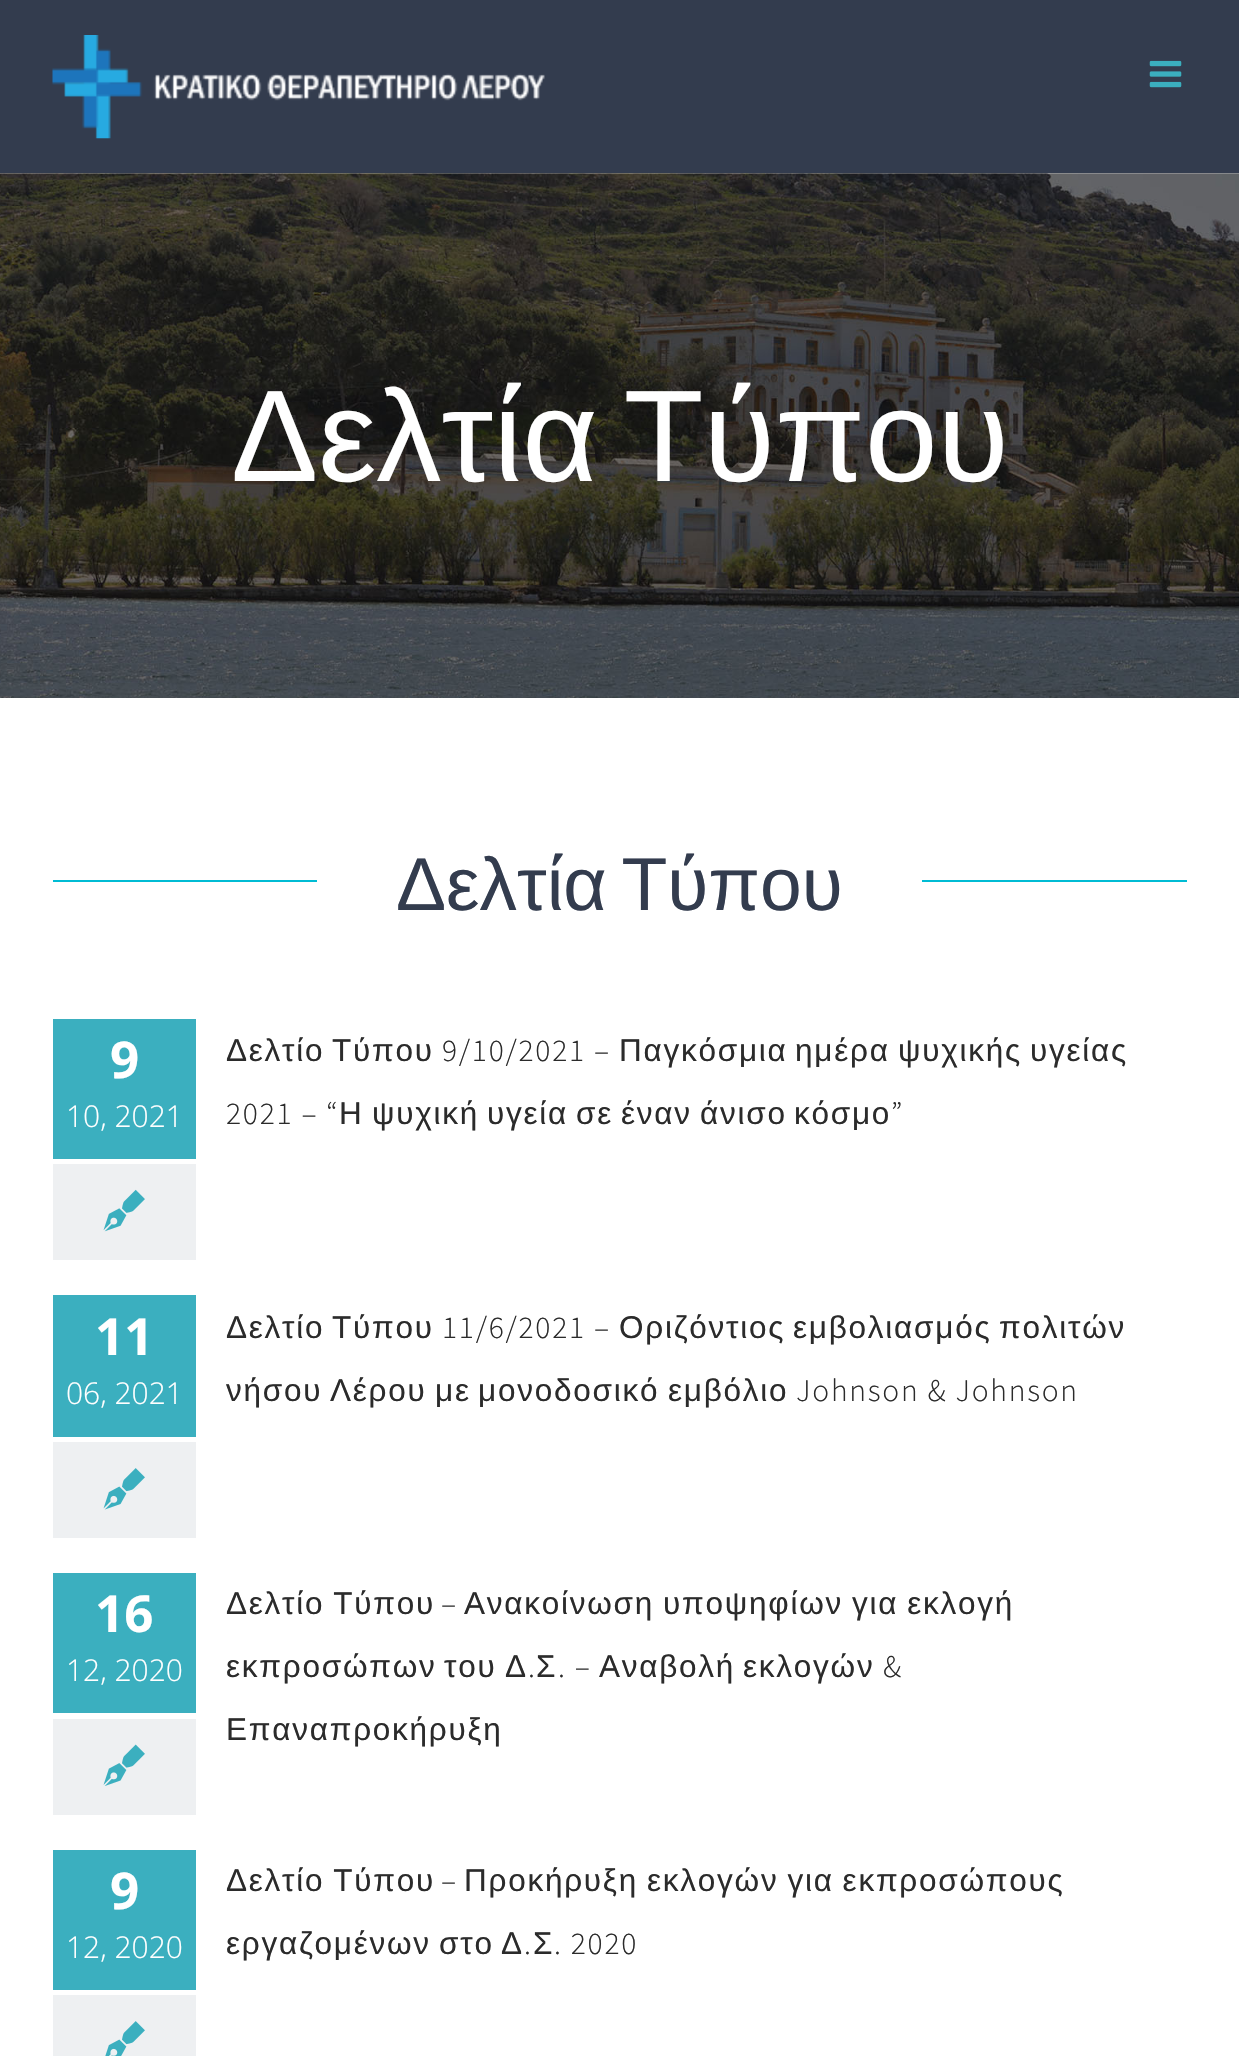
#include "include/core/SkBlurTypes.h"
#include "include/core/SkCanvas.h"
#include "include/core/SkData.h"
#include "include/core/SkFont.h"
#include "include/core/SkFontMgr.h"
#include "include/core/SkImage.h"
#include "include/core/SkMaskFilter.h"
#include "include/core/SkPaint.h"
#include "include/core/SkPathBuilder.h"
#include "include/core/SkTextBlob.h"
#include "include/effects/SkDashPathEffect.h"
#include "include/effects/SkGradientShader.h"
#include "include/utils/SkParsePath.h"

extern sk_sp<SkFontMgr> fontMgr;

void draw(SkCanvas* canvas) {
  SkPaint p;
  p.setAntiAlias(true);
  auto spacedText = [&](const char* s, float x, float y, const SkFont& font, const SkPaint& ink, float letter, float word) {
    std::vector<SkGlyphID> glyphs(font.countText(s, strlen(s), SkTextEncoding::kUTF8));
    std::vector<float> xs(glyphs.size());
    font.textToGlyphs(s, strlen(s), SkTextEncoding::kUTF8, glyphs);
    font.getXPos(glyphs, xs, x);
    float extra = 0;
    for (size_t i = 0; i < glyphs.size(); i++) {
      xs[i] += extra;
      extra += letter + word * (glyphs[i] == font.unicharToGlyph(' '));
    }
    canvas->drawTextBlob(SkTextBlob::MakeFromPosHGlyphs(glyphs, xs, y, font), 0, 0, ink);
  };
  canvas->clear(SK_ColorWHITE);
  p.setColor(SkColorSetRGB(51, 60, 78));
  canvas->drawRect(SkRect::MakeLTRB(0, 0, 1239, 173), p);
  canvas->drawImageRect(SkImages::DeferredFromEncodedData(SkData::MakeFromFileName("images/1.png")), SkRect::MakeLTRB(52, 35, 545, 139), SkSamplingOptions());
  canvas->drawImageRect(SkImages::DeferredFromEncodedData(SkData::MakeFromFileName("images/2.png")), SkRect::MakeLTRB(1149, 60, 1182, 88), SkSamplingOptions());
  canvas->drawImageRect(SkImages::DeferredFromEncodedData(SkData::MakeFromFileName("images/3.png")), SkRect::MakeLTRB(0, 173, 1239, 698), SkSamplingOptions());
  p.setColor(SkColorSetRGB(0, 188, 212));
  canvas->drawRect(SkRect::MakeLTRB(53, 880, 317, 882), p);
  canvas->drawRect(SkRect::MakeLTRB(922, 880, 1187, 882), p);
  p.setColor(SkColorSetRGB(59, 175, 191));
  canvas->drawRect(SkRect::MakeLTRB(53, 1019, 196, 1159), p);
  p.setColor(SkColorSetRGB(238, 240, 242));
  canvas->drawRect(SkRect::MakeLTRB(53, 1164, 196, 1260), p);
  canvas->drawImageRect(SkImages::DeferredFromEncodedData(SkData::MakeFromFileName("images/4.png")), SkRect::MakeLTRB(103, 1189, 145, 1232), SkSamplingOptions());
  p.setColor(SkColorSetRGB(59, 175, 191));
  canvas->drawRect(SkRect::MakeLTRB(53, 1295, 196, 1437), p);
  p.setColor(SkColorSetRGB(238, 240, 242));
  canvas->drawRect(SkRect::MakeLTRB(53, 1442, 196, 1538), p);
  canvas->drawImageRect(SkImages::DeferredFromEncodedData(SkData::MakeFromFileName("images/5.png")), SkRect::MakeLTRB(103, 1468, 145, 1510), SkSamplingOptions());
  p.setColor(SkColorSetRGB(59, 175, 191));
  canvas->drawRect(SkRect::MakeLTRB(53, 1573, 196, 1713), p);
  p.setColor(SkColorSetRGB(238, 240, 242));
  canvas->drawRect(SkRect::MakeLTRB(53, 1719, 196, 1815), p);
  canvas->drawImageRect(SkImages::DeferredFromEncodedData(SkData::MakeFromFileName("images/6.png")), SkRect::MakeLTRB(103, 1744, 145, 1786), SkSamplingOptions());
  p.setColor(SkColorSetRGB(59, 175, 191));
  canvas->drawRect(SkRect::MakeLTRB(53, 1850, 196, 1990), p);
  p.setColor(SkColorSetRGB(238, 240, 242));
  canvas->drawRect(SkRect::MakeLTRB(53, 1995, 196, 2056), p);
  canvas->drawImageRect(SkImages::DeferredFromEncodedData(SkData::MakeFromFileName("images/7.png")), SkRect::MakeLTRB(105, 2021, 145, 2056), SkSamplingOptions());
  SkFont font1(fontMgr->matchFamilyStyle("Liberation Sans", SkFontStyle::Normal()), 130.5f);
  font1.setSubpixel(true);
  p.setColor(SK_ColorWHITE);
  spacedText("Δελτία Τύπου", 231, 481, font1, p, 0, -10);
  SkFont font2(fontMgr->matchFamilyStyle("Liberation Sans", SkFontStyle::Normal()), 75);
  font2.setSubpixel(true);
  p.setColor(SkColorSetRGB(51, 60, 78));
  spacedText("Δελτία Τύπου", 396, 910, font2, p, 0, -6);
  SkFont font3(fontMgr->matchFamilyStyle("Open Sans", SkFontStyle::Bold()), 51);
  font3.setSubpixel(true);
  p.setColor(SK_ColorWHITE);
  canvas->drawString("9", 110, 1078, font3, p);
  SkFont font4(fontMgr->matchFamilyStyle("Open Sans", SkFontStyle(300, SkFontStyle::kNormal_Width, SkFontStyle::kUpright_Slant)), 30);
  font4.setSubpixel(true);
  canvas->drawString("10, 2021", 66, 1127, font4, p);
  SkFont font5(fontMgr->matchFamilyStyle("Liberation Sans", SkFontStyle::Normal()), 31.5f);
  font5.setSubpixel(true);
  p.setColor(SkColorSetRGB(43, 43, 43));
  spacedText("Δελτίο", 226, 1061, font5, p, 1.75f, 0);
  spacedText("Τύπου", 332, 1061, font5, p, 1.75f, 0);
  SkFont font6(fontMgr->matchFamilyStyle("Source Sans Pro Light", SkFontStyle(300, SkFontStyle::kNormal_Width, SkFontStyle::kUpright_Slant)), 31.5f);
  font6.setSubpixel(true);
  spacedText("9/10/2021 –", 442, 1061, font6, p, 1.75f, 0);
  spacedText("Παγκόσμια", 619, 1061, font5, p, 1.75f, 0);
  spacedText("ημέρα", 795, 1061, font5, p, 1.75f, 0);
  spacedText("ψυχικής", 898, 1061, font5, p, 1.75f, 0);
  spacedText("υγείας", 1030, 1061, font5, p, 1.75f, 0);
  spacedText("2021 – “", 226, 1124, font6, p, 1.75f, 0);
  spacedText("Η", 339, 1124, font5, p, 1.75f, 0);
  spacedText("ψυχική", 372, 1124, font5, p, 1.75f, 0);
  spacedText("υγεία", 487, 1124, font5, p, 1.75f, 0);
  spacedText("σε", 576, 1124, font5, p, 1.75f, 0);
  spacedText("έναν", 621, 1124, font5, p, 1.75f, 0);
  spacedText("άνισο", 700, 1124, font5, p, 1.75f, 0);
  spacedText("κόσμο", 794, 1124, font5, p, 1.75f, 0);
  spacedText("”", 891, 1124, font6, p, 1.75f, 0);
  p.setColor(SK_ColorWHITE);
  canvas->drawString("11", 95, 1355, font3, p);
  canvas->drawString("06, 2021", 66, 1404, font4, p);
  p.setColor(SkColorSetRGB(43, 43, 43));
  spacedText("Δελτίο", 226, 1338, font5, p, 1.75f, 0);
  spacedText("Τύπου", 332, 1338, font5, p, 1.75f, 0);
  spacedText("11/6/2021 –", 442, 1338, font6, p, 1.75f, 0);
  spacedText("Οριζόντιος", 619, 1338, font5, p, 1.75f, 0);
  spacedText("εμβολιασμός", 793, 1338, font5, p, 1.75f, 0);
  spacedText("πολιτών", 999, 1338, font5, p, 1.75f, 0);
  spacedText("νήσου", 226, 1401, font5, p, 1.75f, 0);
  spacedText("Λέρου", 330, 1401, font5, p, 1.75f, 0);
  spacedText("με", 435, 1401, font5, p, 1.75f, 0);
  spacedText("μονοδοσικό", 478, 1401, font5, p, 1.75f, 0);
  spacedText("εμβόλιο", 668, 1401, font5, p, 1.75f, 0);
  spacedText("Johnson & Johnson", 796, 1401, font6, p, 1.75f, 0);
  p.setColor(SK_ColorWHITE);
  canvas->drawString("16", 95, 1632, font3, p);
  canvas->drawString("12, 2020", 66, 1681, font4, p);
  p.setColor(SkColorSetRGB(43, 43, 43));
  spacedText("Δελτίο Τύπου", 226, 1614, font5, p, 1.75f, -1.5f);
  spacedText("–", 441, 1614, font6, p, 1.75f, 0);
  spacedText("Ανακοίνωση υποψηφίων για εκλογή", 464, 1614, font5, p, 1.75f, -1.5f);
  spacedText("εκπροσώπων", 226, 1677, font5, p, 1.75f, 0);
  spacedText("του", 444, 1677, font5, p, 1.75f, 0);
  spacedText("Δ", 505, 1677, font5, p, 1.75f, 0);
  spacedText(".", 528, 1677, font6, p, 1.75f, 0);
  spacedText("Σ", 536, 1677, font5, p, 1.75f, 0);
  spacedText(". –", 558, 1677, font6, p, 1.75f, 0);
  spacedText("Αναβολή", 599, 1677, font5, p, 1.75f, 0);
  spacedText("εκλογών", 743, 1677, font5, p, 1.75f, 0);
  spacedText("&", 883, 1677, font6, p, 1.75f, 0);
  spacedText("Επαναπροκήρυξη", 226, 1740, font5, p, 1.75f, 0);
  p.setColor(SK_ColorWHITE);
  canvas->drawString("9", 110, 1909, font3, p);
  canvas->drawString("12, 2020", 66, 1958, font4, p);
  p.setColor(SkColorSetRGB(43, 43, 43));
  spacedText("Δελτίο Τύπου", 226, 1891, font5, p, 1.75f, -1.5f);
  spacedText("–", 441, 1891, font6, p, 1.75f, 0);
  spacedText("Προκήρυξη εκλογών για εκπροσώπους", 464, 1891, font5, p, 1.75f, -1.5f);
  spacedText("εργαζομένων", 226, 1954, font5, p, 1.75f, 0);
  spacedText("στο", 439, 1954, font5, p, 1.75f, 0);
  spacedText("Δ", 501, 1954, font5, p, 1.75f, 0);
  spacedText(".", 524, 1954, font6, p, 1.75f, 0);
  spacedText("Σ", 533, 1954, font5, p, 1.75f, 0);
  spacedText(". 2020", 554, 1954, font6, p, 1.75f, 0);
}
